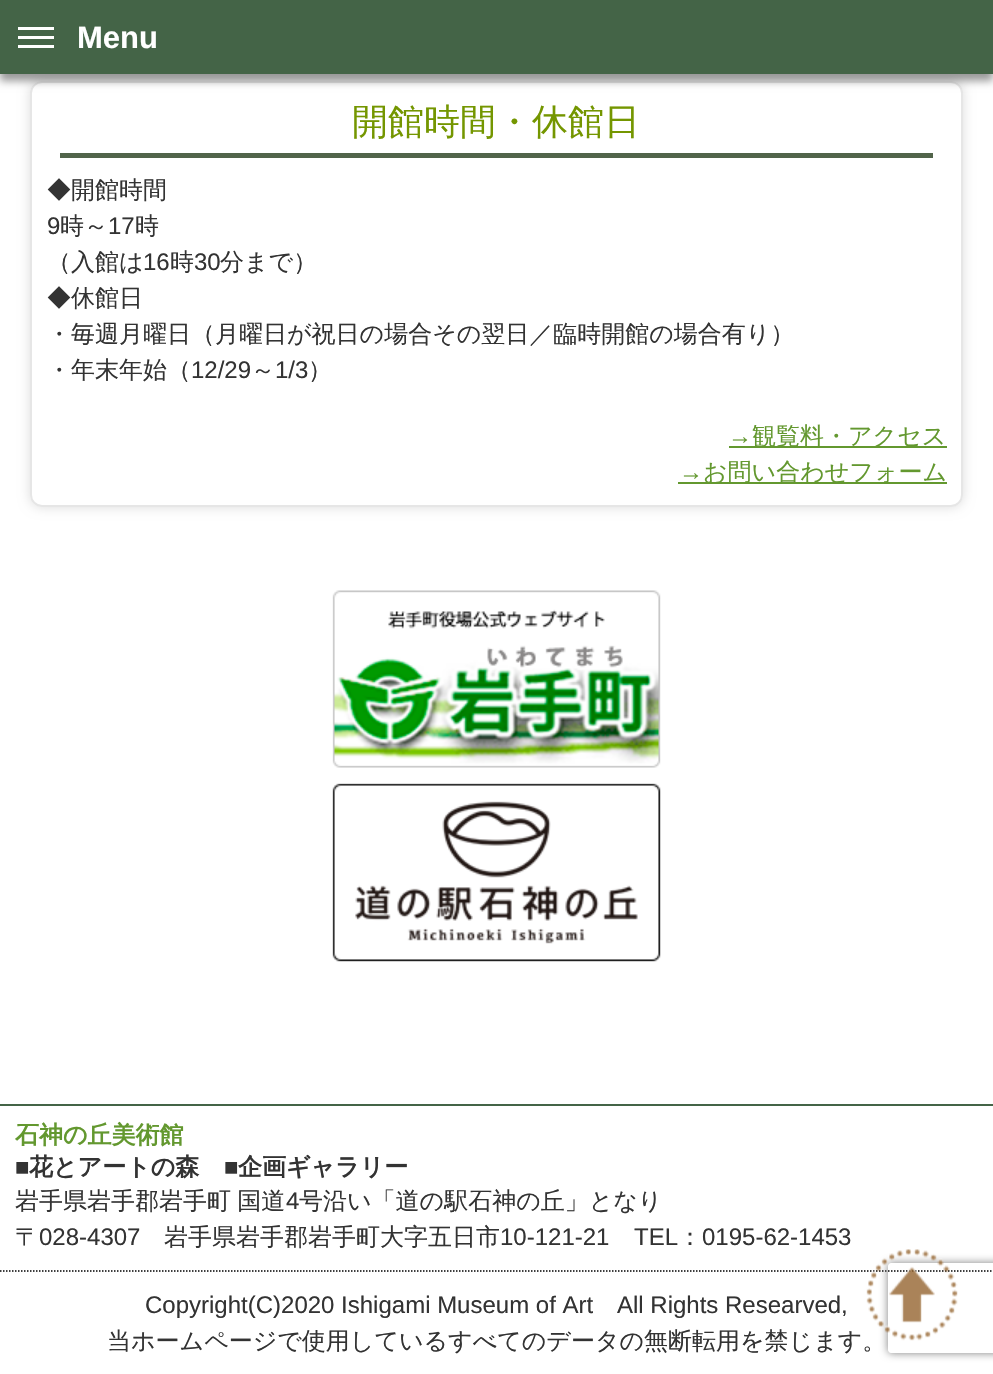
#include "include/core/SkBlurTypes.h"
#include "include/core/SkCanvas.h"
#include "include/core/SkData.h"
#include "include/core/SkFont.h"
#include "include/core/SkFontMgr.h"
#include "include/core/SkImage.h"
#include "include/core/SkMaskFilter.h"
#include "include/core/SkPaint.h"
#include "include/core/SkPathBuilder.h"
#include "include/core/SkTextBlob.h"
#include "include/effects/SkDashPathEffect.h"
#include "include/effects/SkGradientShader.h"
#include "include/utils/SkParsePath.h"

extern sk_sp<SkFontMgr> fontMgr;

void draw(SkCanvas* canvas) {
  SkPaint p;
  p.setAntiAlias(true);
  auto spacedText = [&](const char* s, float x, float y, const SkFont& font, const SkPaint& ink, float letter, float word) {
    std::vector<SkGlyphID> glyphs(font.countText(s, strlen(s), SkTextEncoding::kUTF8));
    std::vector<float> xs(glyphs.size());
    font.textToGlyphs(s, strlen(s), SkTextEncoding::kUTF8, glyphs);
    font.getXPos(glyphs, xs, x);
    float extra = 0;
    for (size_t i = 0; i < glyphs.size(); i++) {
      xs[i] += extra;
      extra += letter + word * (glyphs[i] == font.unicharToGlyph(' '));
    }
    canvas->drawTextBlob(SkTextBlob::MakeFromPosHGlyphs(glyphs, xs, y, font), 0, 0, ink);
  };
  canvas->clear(SK_ColorWHITE);
  canvas->save();
  canvas->clipPath(SkPathBuilder(SkPathFillType::kEvenOdd).moveTo(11, 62).lineTo(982, 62).lineTo(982, 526).lineTo(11, 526).close().moveTo(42, 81).lineTo(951, 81).cubicTo(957.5f, 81, 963, 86.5f, 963, 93).lineTo(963, 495).cubicTo(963, 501.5f, 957.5f, 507, 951, 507).lineTo(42, 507).cubicTo(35.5f, 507, 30, 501.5f, 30, 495).lineTo(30, 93).cubicTo(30, 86.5f, 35.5f, 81, 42, 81).close().detach(), true);
  p.setColor(SkColorSetRGB(220, 220, 220));
  p.setMaskFilter(SkMaskFilter::MakeBlur(kNormal_SkBlurStyle, 6));
  canvas->drawRoundRect(SkRect::MakeLTRB(30, 81, 963, 507), 12, 12, p);
  p.setMaskFilter(nullptr);
  canvas->restore();
  p.setStyle(SkPaint::kStroke_Style);
  p.setStrokeWidth(2);
  p.setColor(SkColorSetRGB(230, 230, 230));
  canvas->drawRoundRect(SkRect::MakeLTRB(31, 82, 962, 506), 11, 11, p);
  p.setStyle(SkPaint::kFill_Style);
  p.setColor(SkColorSetARGB(102, 0, 0, 0));
  p.setMaskFilter(SkMaskFilter::MakeBlur(kNormal_SkBlurStyle, 4));
  canvas->drawRect(SkRect::MakeLTRB(0, 8, 993, 81), p);
  p.setMaskFilter(nullptr);
  p.setColor(SkColorSetRGB(68, 100, 71));
  canvas->drawRect(SkRect::MakeLTRB(0, 0, 993, 74), p);
  p.setColor(SK_ColorWHITE);
  canvas->drawRect(SkRect::MakeLTRB(18, 36, 54, 39), p);
  canvas->drawRect(SkRect::MakeLTRB(18, 27, 54, 30), p);
  canvas->drawRect(SkRect::MakeLTRB(18, 45, 54, 48), p);
  p.setColor(SkColorSetRGB(81, 100, 74));
  canvas->drawRect(SkRect::MakeLTRB(60, 153, 933, 158), p);
  p.setColor(SkColorSetRGB(99, 152, 47));
  canvas->drawRect(SkRect::MakeLTRB(729, 446, 947, 448), p);
  canvas->drawRect(SkRect::MakeLTRB(678, 482, 947, 484), p);
  canvas->drawImageRect(SkImages::DeferredFromEncodedData(SkData::MakeFromFileName("images/1.png")), SkRect::MakeLTRB(332, 590, 661, 768), SkSamplingOptions());
  canvas->drawImageRect(SkImages::DeferredFromEncodedData(SkData::MakeFromFileName("images/2.png")), SkRect::MakeLTRB(332, 783, 661, 962), SkSamplingOptions());
  p.setColor(SkColorSetRGB(68, 100, 71));
  canvas->drawRect(SkRect::MakeLTRB(0, 1104, 993, 1106), p);
  p.setStyle(SkPaint::kStroke_Style);
  p.setStrokeWidth(1.5f);
  p.setColor(SK_ColorBLACK);
  p.setPathEffect(SkDashPathEffect::Make({{1.5f, 1.5f}}, 0));
  canvas->drawPath(SkPathBuilder().moveTo(0, 1271).lineTo(993, 1271).detach(), p);
  p.setPathEffect(nullptr);
  canvas->save();
  canvas->clipPath(SkPathBuilder(SkPathFillType::kEvenOdd).moveTo(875, 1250).lineTo(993, 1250).lineTo(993, 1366).lineTo(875, 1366).close().moveTo(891, 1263).lineTo(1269, 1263).cubicTo(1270.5f, 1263, 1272, 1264.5f, 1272, 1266).lineTo(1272, 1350).cubicTo(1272, 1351.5f, 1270.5f, 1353, 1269, 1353).lineTo(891, 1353).cubicTo(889.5f, 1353, 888, 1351.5f, 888, 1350).lineTo(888, 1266).cubicTo(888, 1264.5f, 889.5f, 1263, 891, 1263).close().detach(), true);
  p.setStyle(SkPaint::kFill_Style);
  p.setColor(SkColorSetRGB(128, 128, 128));
  p.setMaskFilter(SkMaskFilter::MakeBlur(kNormal_SkBlurStyle, 4));
  canvas->drawRoundRect(SkRect::MakeLTRB(888, 1263, 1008, 1353), 3, 3, p);
  p.setMaskFilter(nullptr);
  canvas->restore();
  SkFont font1(fontMgr->matchFamilyStyle("Liberation Sans", SkFontStyle::Bold()), 31);
  font1.setSubpixel(true);
  p.setColor(SK_ColorWHITE);
  canvas->drawString("Menu", 77, 48, font1, p);
  SkFont font2(fontMgr->matchFamilyStyle("WenQuanYi Zen Hei", SkFontStyle(500, SkFontStyle::kNormal_Width, SkFontStyle::kUpright_Slant)), 36);
  font2.setSubpixel(true);
  p.setColor(SkColorSetRGB(116, 150, 0));
  canvas->drawString("開館時間・休館日", 352, 134, font2, p);
  SkFont font3(fontMgr->matchFamilyStyle("WenQuanYi Zen Hei", SkFontStyle(500, SkFontStyle::kNormal_Width, SkFontStyle::kUpright_Slant)), 24);
  font3.setSubpixel(true);
  p.setColor(SkColorSetRGB(51, 51, 51));
  canvas->drawString("◆開館時間", 47, 198, font3, p);
  SkFont font4(fontMgr->matchFamilyStyle("Liberation Sans", SkFontStyle::Normal()), 24);
  font4.setSubpixel(true);
  canvas->drawString("9", 47, 234, font4, p);
  canvas->drawString("時～", 60, 234, font3, p);
  canvas->drawString("17", 108, 234, font4, p);
  canvas->drawString("時", 135, 234, font3, p);
  canvas->drawString("（入館は", 47, 270, font3, p);
  canvas->drawString("16", 143, 270, font4, p);
  canvas->drawString("時", 170, 270, font3, p);
  canvas->drawString("30", 194, 270, font4, p);
  canvas->drawString("分まで）", 220, 270, font3, p);
  canvas->drawString("◆休館日", 47, 306, font3, p);
  canvas->drawString("・毎週月曜日（月曜日が祝日の場合その翌日／臨時開館の場合有り）", 47, 342, font3, p);
  canvas->drawString("・年末年始（", 47, 378, font3, p);
  canvas->drawString("12/29", 191, 378, font4, p);
  canvas->drawString("～", 251, 378, font3, p);
  canvas->drawString("1/3", 275, 378, font4, p);
  canvas->drawString("）", 308, 378, font3, p);
  p.setColor(SkColorSetRGB(99, 152, 47));
  canvas->drawString("→", 728, 444, font4, p);
  canvas->drawString("観覧料・アクセス", 752, 444, font3, p);
  canvas->drawString("→", 679, 480, font4, p);
  canvas->drawString("お問い合わせフォーム", 703, 480, font3, p);
  SkFont font5(fontMgr->matchFamilyStyle("WenQuanYi Zen Hei", SkFontStyle::Bold()), 24);
  font5.setSubpixel(true);
  canvas->drawString("石神の丘美術館", 15, 1143, font5, p);
  SkFont font6(fontMgr->matchFamilyStyle("Liberation Sans", SkFontStyle::Bold()), 24);
  font6.setSubpixel(true);
  p.setColor(SkColorSetRGB(51, 51, 51));
  canvas->drawString("■", 15, 1175, font6, p);
  canvas->drawString("花とアートの森", 29, 1175, font5, p);
  canvas->drawString("■", 224, 1175, font6, p);
  canvas->drawString("企画ギャラリー", 238, 1175, font5, p);
  spacedText("岩手県岩手郡岩手町 国道", 15, 1209, font3, p, 0, -1);
  canvas->drawString("4", 286, 1209, font4, p);
  canvas->drawString("号沿い「道の駅石神の丘」となり", 299, 1209, font3, p);
  canvas->drawString("〒", 15, 1245, font3, p);
  canvas->drawString("028-4307", 39, 1245, font4, p);
  canvas->drawString("岩手県岩手郡岩手町大字五日市", 164, 1245, font3, p);
  canvas->drawString("10-121-21", 500, 1245, font4, p);
  canvas->drawString("TEL", 634, 1245, font4, p);
  canvas->drawString("：", 678, 1245, font3, p);
  canvas->drawString("0195-62-1453", 702, 1245, font4, p);
  canvas->drawString("Copyright(C)2020 Ishigami Museum of Art", 145, 1313, font4, p);
  canvas->drawString("All Rights Researved,", 617, 1313, font4, p);
  canvas->drawString("当ホームページで使用しているすべてのデータの無断転用を禁じます。", 107, 1349, font3, p);
  canvas->drawImageRect(SkImages::DeferredFromEncodedData(SkData::MakeFromFileName("images/3.png")), SkRect::MakeLTRB(866, 1249, 958, 1341), SkSamplingOptions());
}
